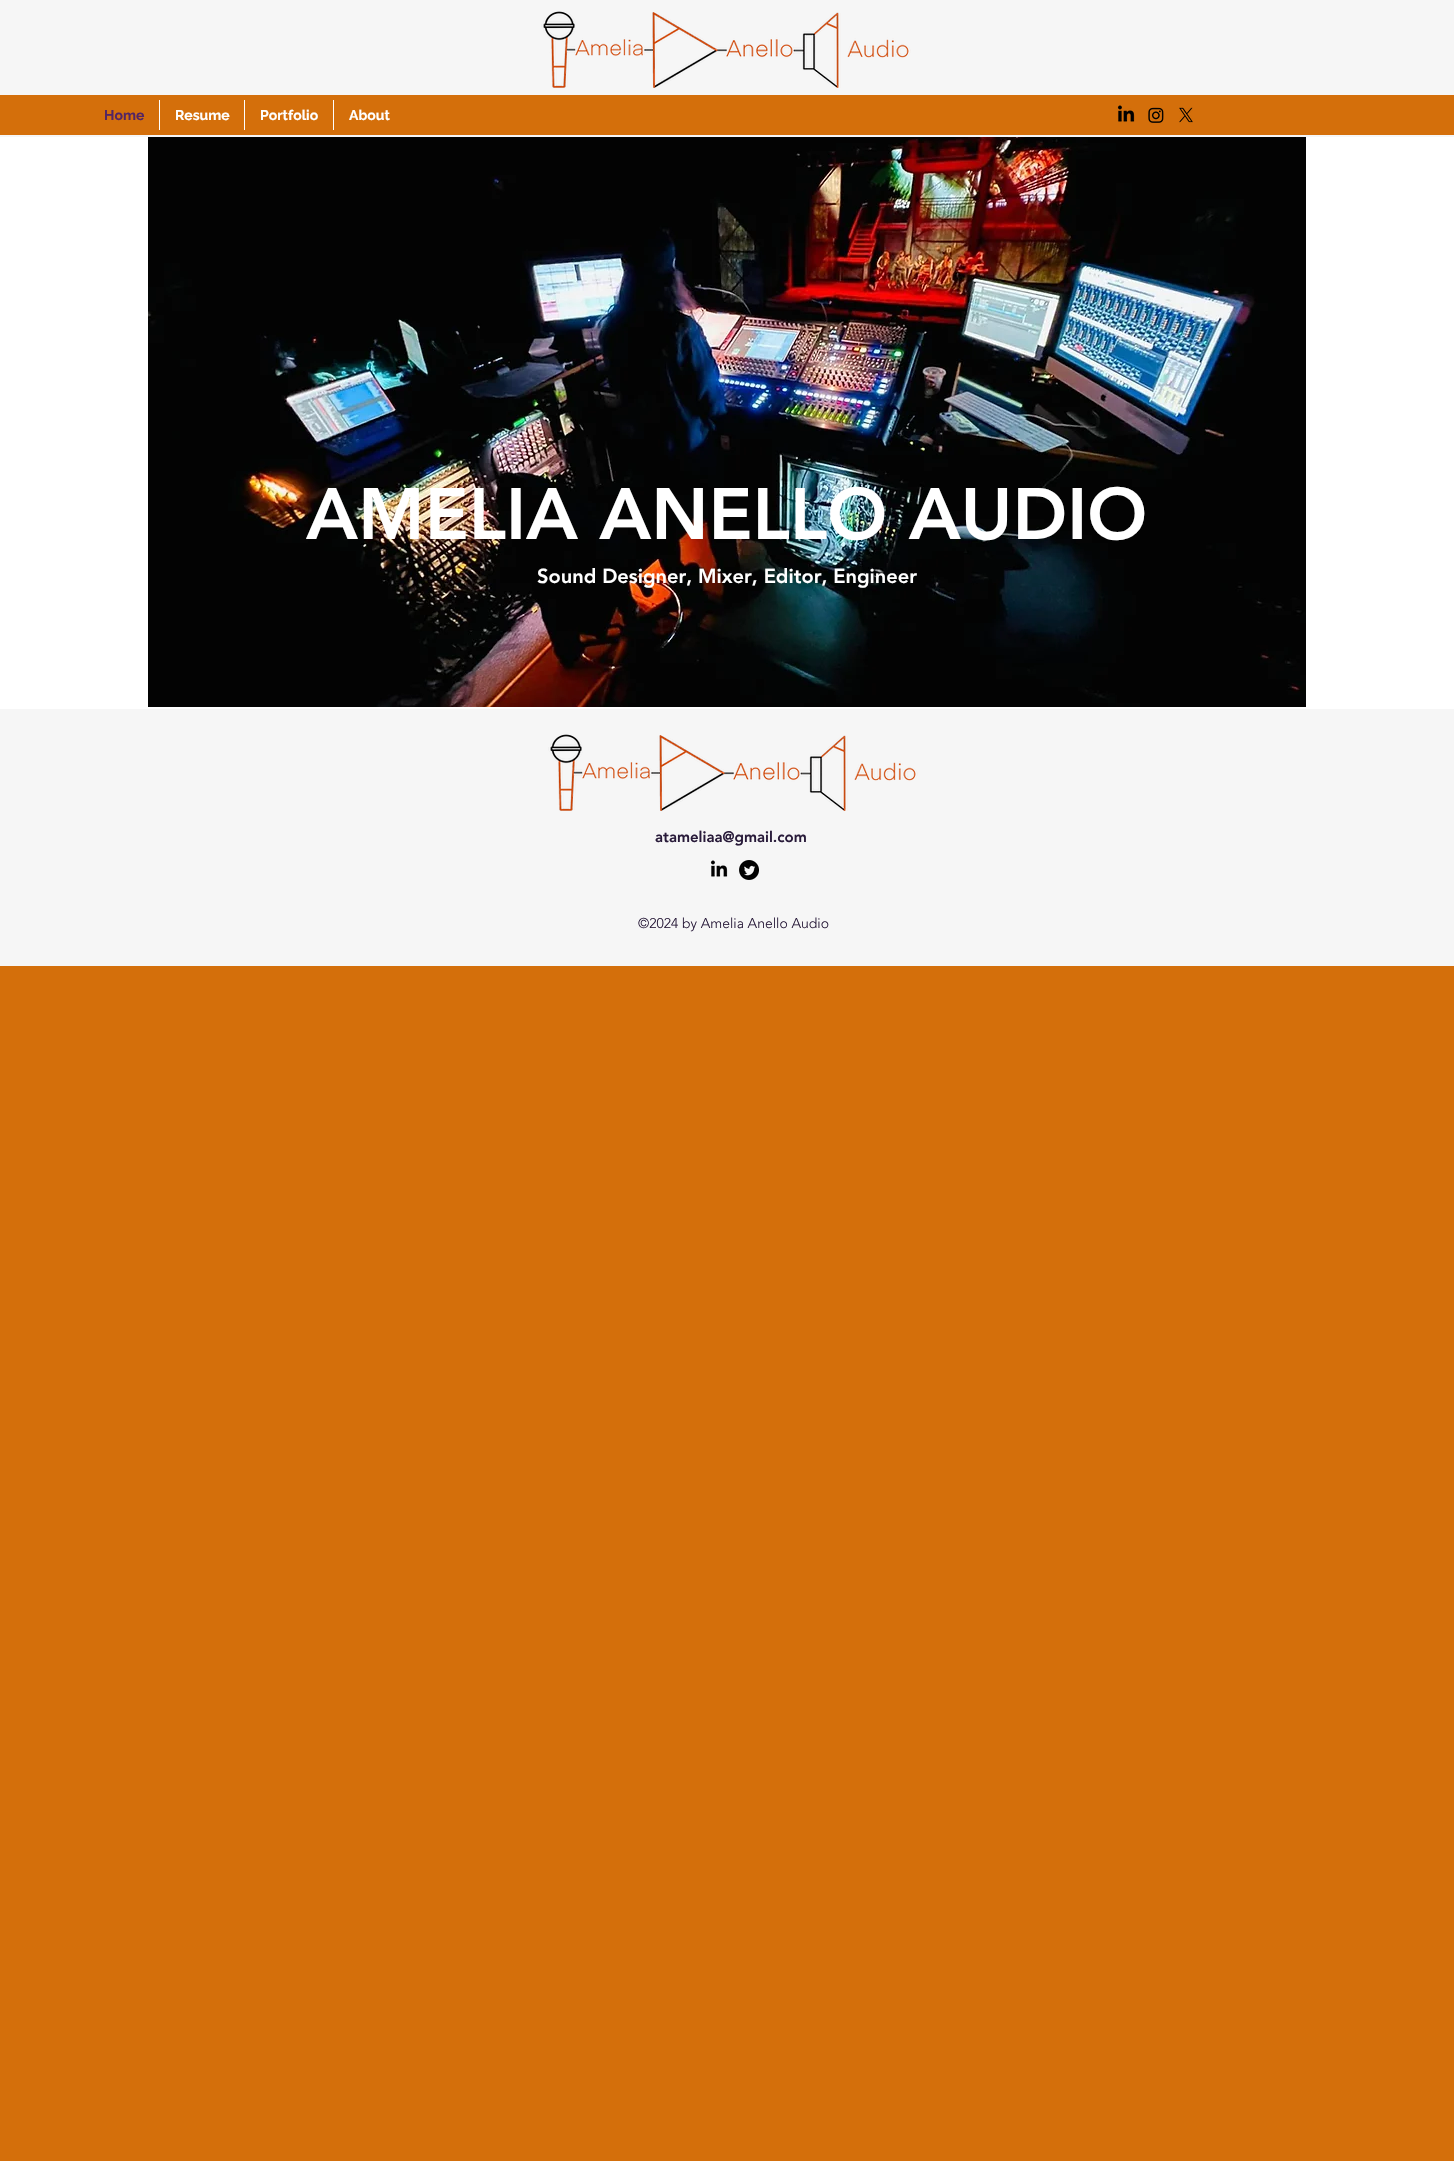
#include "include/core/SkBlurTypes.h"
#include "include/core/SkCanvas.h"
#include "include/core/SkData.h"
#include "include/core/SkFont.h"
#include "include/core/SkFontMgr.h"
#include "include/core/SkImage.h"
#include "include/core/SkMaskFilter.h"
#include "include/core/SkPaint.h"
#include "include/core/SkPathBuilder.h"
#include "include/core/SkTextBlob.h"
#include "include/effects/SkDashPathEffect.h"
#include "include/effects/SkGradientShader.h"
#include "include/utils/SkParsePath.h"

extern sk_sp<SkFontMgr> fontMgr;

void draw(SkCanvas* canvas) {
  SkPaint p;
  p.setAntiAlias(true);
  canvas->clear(SkColorSetRGB(212, 111, 11));
  p.setColor(SkColorSetRGB(246, 246, 246));
  canvas->drawRect(SkRect::MakeLTRB(0, 0, 1454, 137), p);
  canvas->drawImageRect(SkImages::DeferredFromEncodedData(SkData::MakeFromFileName("images/1.png")), SkRect::MakeLTRB(541, 11, 911, 88), SkSamplingOptions());
  p.setColor(SkColorSetRGB(212, 111, 11));
  canvas->drawRect(SkRect::MakeLTRB(0, 95, 1454, 135), p);
  canvas->drawImageRect(SkImages::DeferredFromEncodedData(SkData::MakeFromFileName("images/2.png")), SkRect::MakeLTRB(1117, 105, 1135, 122), SkSamplingOptions());
  canvas->drawImageRect(SkImages::DeferredFromEncodedData(SkData::MakeFromFileName("images/3.png")), SkRect::MakeLTRB(1148, 107, 1164, 123), SkSamplingOptions());
  canvas->drawImageRect(SkImages::DeferredFromEncodedData(SkData::MakeFromFileName("images/4.png")), SkRect::MakeLTRB(1179, 107, 1193, 123), SkSamplingOptions());
  p.setColor(SK_ColorWHITE);
  canvas->drawRect(SkRect::MakeLTRB(159, 100, 160, 130), p);
  canvas->drawRect(SkRect::MakeLTRB(244, 100, 245, 130), p);
  canvas->drawRect(SkRect::MakeLTRB(333, 100, 334, 130), p);
  canvas->drawRect(SkRect::MakeLTRB(0, 137, 1454, 709), p);
  canvas->drawImageRect(SkImages::DeferredFromEncodedData(SkData::MakeFromFileName("images/5.png")), SkRect::MakeLTRB(148, 137, 1306, 707), SkSamplingOptions());
  p.setColor(SkColorSetRGB(246, 246, 246));
  canvas->drawRect(SkRect::MakeLTRB(0, 709, 1454, 966), p);
  canvas->drawImageRect(SkImages::DeferredFromEncodedData(SkData::MakeFromFileName("images/1.png")), SkRect::MakeLTRB(548, 734, 918, 811), SkSamplingOptions());
  canvas->drawImageRect(SkImages::DeferredFromEncodedData(SkData::MakeFromFileName("images/6.png")), SkRect::MakeLTRB(710, 860, 728, 877), SkSamplingOptions());
  canvas->drawImageRect(SkImages::DeferredFromEncodedData(SkData::MakeFromFileName("images/7.png")), SkRect::MakeLTRB(739, 860, 759, 880), SkSamplingOptions());
  SkFont font1(fontMgr->matchFamilyStyle("Raleway", SkFontStyle::Bold()), 14);
  font1.setSubpixel(true);
  p.setColor(SkColorSetRGB(83, 37, 99));
  canvas->drawString("Home", 104, 120, font1, p);
  p.setColor(SK_ColorWHITE);
  canvas->drawString("Resume", 175, 120, font1, p);
  canvas->drawString("Portfolio", 260, 120, font1, p);
  canvas->drawString("About", 349, 120, font1, p);
  SkFont font2(fontMgr->matchFamilyStyle("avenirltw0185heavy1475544", SkFontStyle(900, SkFontStyle::kNormal_Width, SkFontStyle::kUpright_Slant)), 72);
  font2.setSubpixel(true);
  canvas->drawString("AMELIA ANELLO AUDIO", 306, 539, font2, p);
  SkFont font3(fontMgr->matchFamilyStyle("avenirltw0185heavy1475544", SkFontStyle(900, SkFontStyle::kNormal_Width, SkFontStyle::kUpright_Slant)), 20);
  font3.setSubpixel(true);
  canvas->drawString("Sound Designer, Mixer, Editor, Engineer", 537, 583, font3, p);
  SkFont font4(fontMgr->matchFamilyStyle("avenirltw0185heavy1475544", SkFontStyle(900, SkFontStyle::kNormal_Width, SkFontStyle::kUpright_Slant)), 15);
  font4.setSubpixel(true);
  p.setColor(SkColorSetRGB(40, 26, 57));
  canvas->drawString("atameliaa@gmail.com", 655, 842, font4, p);
  SkFont font5(fontMgr->matchFamilyStyle("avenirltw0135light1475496", SkFontStyle(300, SkFontStyle::kNormal_Width, SkFontStyle::kUpright_Slant)), 14);
  font5.setSubpixel(true);
  canvas->drawString("©2024 by Amelia Anello Audio", 638, 928, font5, p);
}
